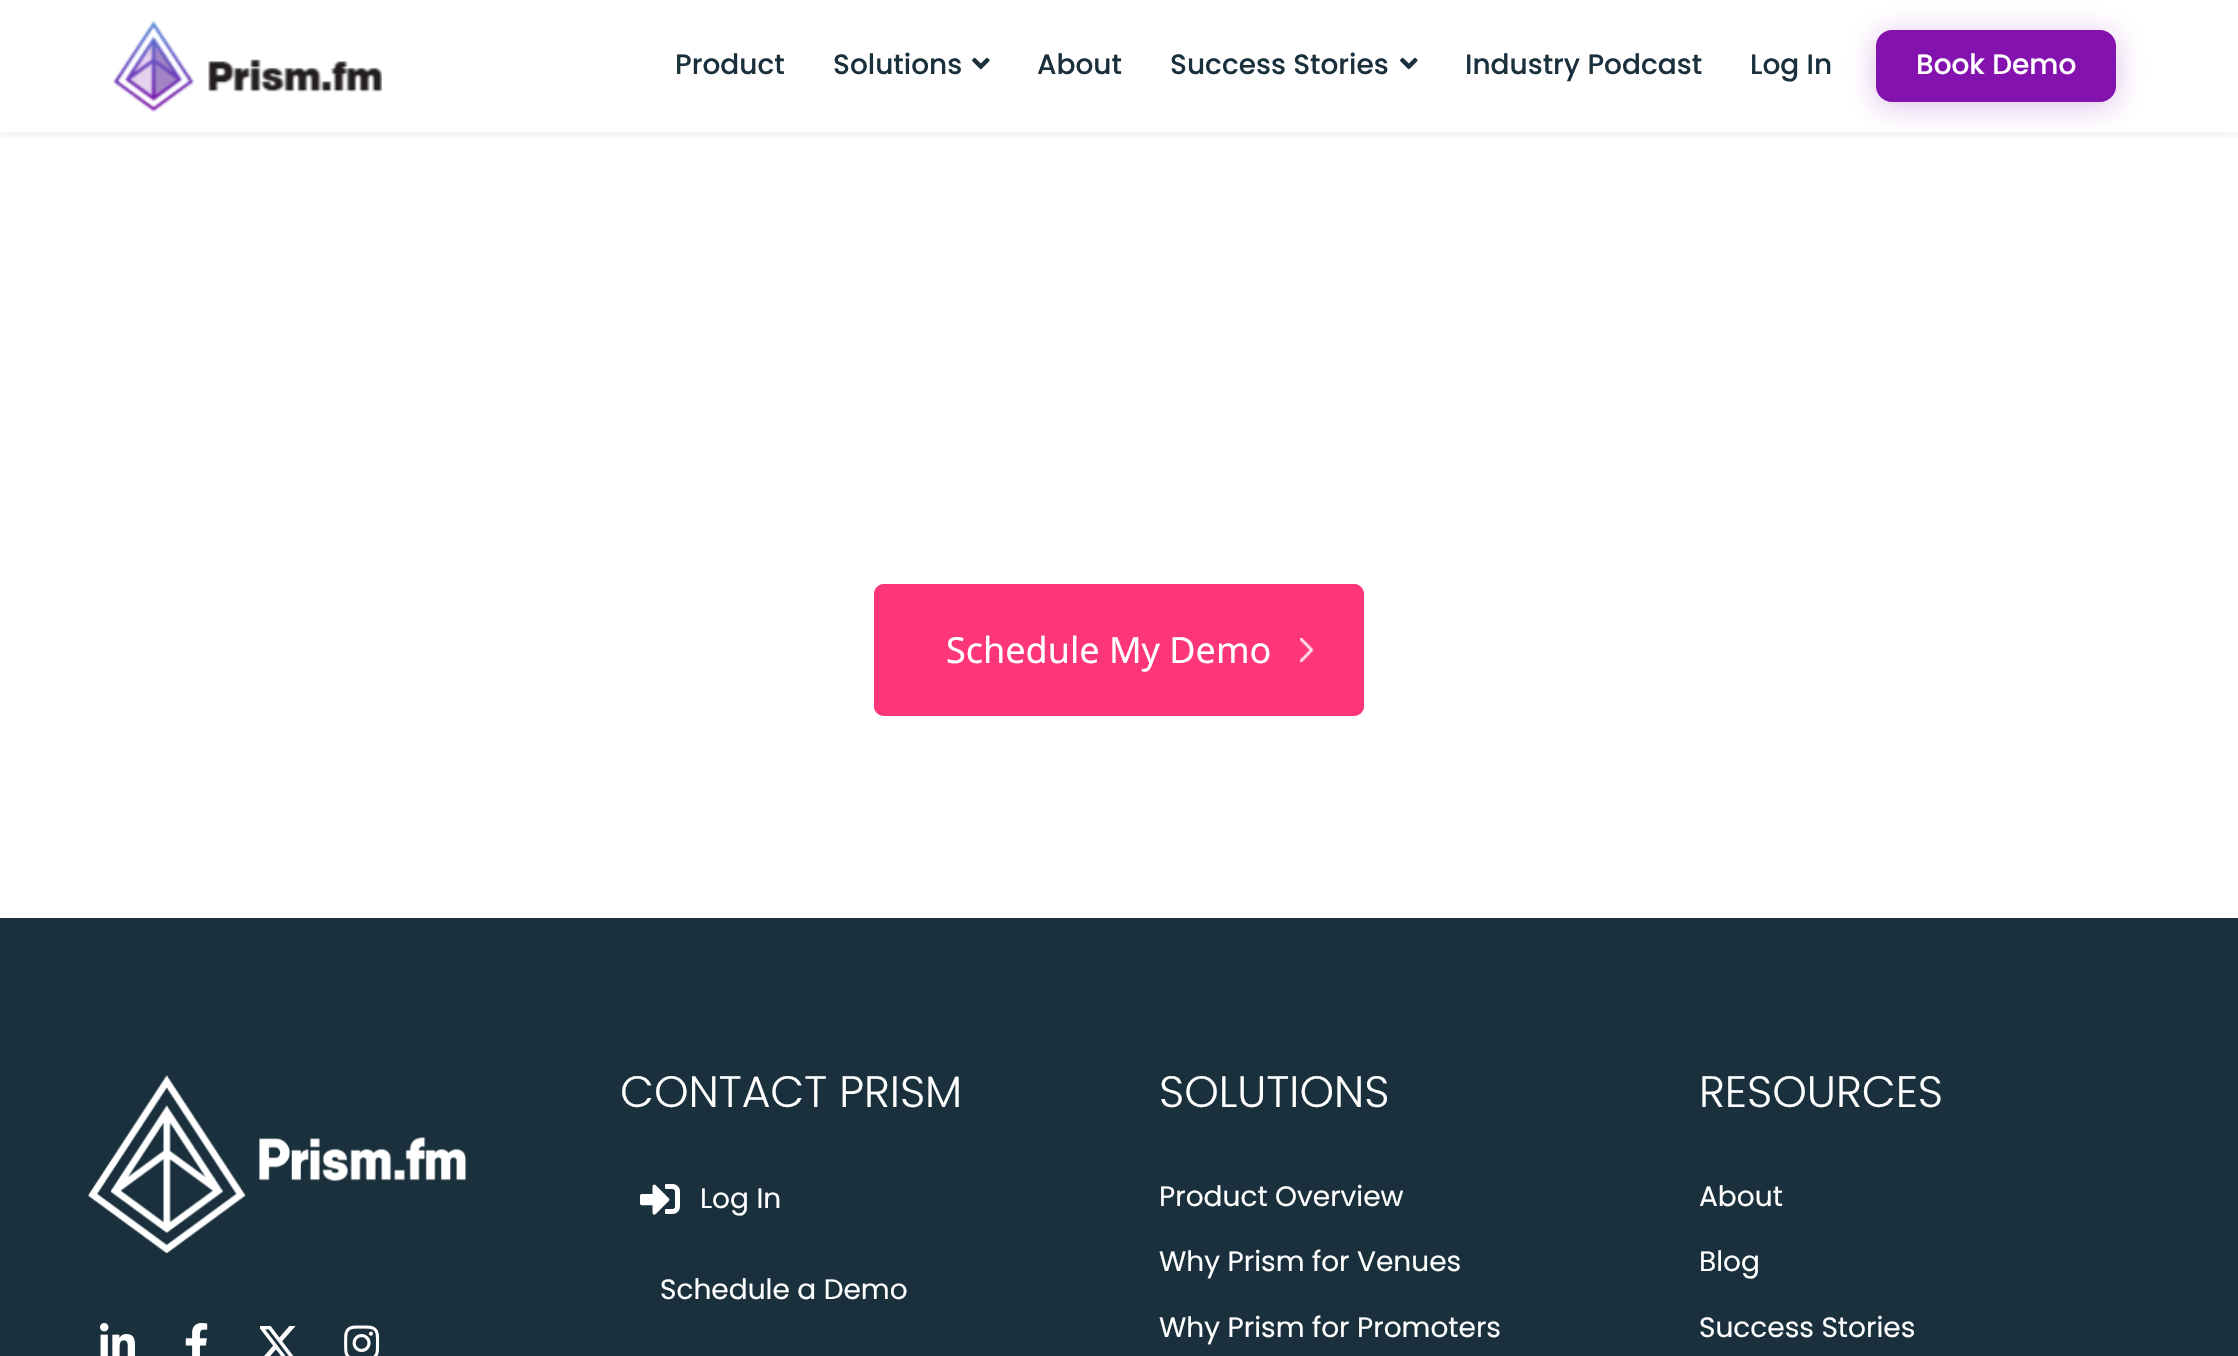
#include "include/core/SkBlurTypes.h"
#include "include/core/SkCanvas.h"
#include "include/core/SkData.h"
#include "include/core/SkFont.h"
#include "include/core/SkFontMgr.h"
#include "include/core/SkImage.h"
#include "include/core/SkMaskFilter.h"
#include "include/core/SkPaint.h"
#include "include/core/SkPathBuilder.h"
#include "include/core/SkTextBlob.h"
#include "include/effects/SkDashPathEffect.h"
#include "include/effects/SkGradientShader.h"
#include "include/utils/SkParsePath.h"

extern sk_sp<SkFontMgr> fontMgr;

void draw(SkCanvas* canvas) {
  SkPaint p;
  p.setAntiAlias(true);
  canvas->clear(SK_ColorWHITE);
  canvas->save();
  canvas->clipRect(SkRect::MakeLTRB(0, 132, 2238, 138));
  p.setColor(SkColorSetARGB(26, 0, 0, 0));
  p.setMaskFilter(SkMaskFilter::MakeBlur(kNormal_SkBlurStyle, 7));
  canvas->drawRect(SkRect::MakeLTRB(0, 0, 2238, 132), p);
  p.setMaskFilter(nullptr);
  canvas->restore();
  canvas->drawImageRect(SkImages::DeferredFromEncodedData(SkData::MakeFromFileName("images/1.png")), SkRect::MakeLTRB(113, 21, 382, 112), SkSamplingOptions());
  canvas->drawImageRect(SkImages::DeferredFromEncodedData(SkData::MakeFromFileName("images/2.png")), SkRect::MakeLTRB(972, 57, 990, 70), SkSamplingOptions());
  canvas->drawImageRect(SkImages::DeferredFromEncodedData(SkData::MakeFromFileName("images/2.png")), SkRect::MakeLTRB(1400, 57, 1418, 70), SkSamplingOptions());
  p.setColor(SkColorSetARGB(71, 132, 18, 175));
  p.setMaskFilter(SkMaskFilter::MakeBlur(kNormal_SkBlurStyle, 15));
  canvas->drawRoundRect(SkRect::MakeLTRB(1876, 34, 2116, 106), 16, 16, p);
  p.setMaskFilter(nullptr);
  p.setColor(SkColorSetRGB(132, 18, 175));
  canvas->drawRoundRect(SkRect::MakeLTRB(1876, 30, 2116, 102), 16, 16, p);
  p.setColor(SkColorSetRGB(252, 54, 121));
  canvas->drawRoundRect(SkRect::MakeLTRB(874, 584, 1364, 716), 10, 10, p);
  canvas->drawImageRect(SkImages::DeferredFromEncodedData(SkData::MakeFromFileName("images/3.png")), SkRect::MakeLTRB(1300, 638, 1314, 662), SkSamplingOptions());
  p.setStyle(SkPaint::kStroke_Style);
  p.setStrokeWidth(2);
  canvas->drawRoundRect(SkRect::MakeLTRB(875, 585, 1363, 715), 9, 9, p);
  p.setStyle(SkPaint::kFill_Style);
  p.setColor(SkColorSetRGB(26, 48, 60));
  canvas->drawRect(SkRect::MakeLTRB(0, 918, 2238, 1356), p);
  canvas->drawImageRect(SkImages::DeferredFromEncodedData(SkData::MakeFromFileName("images/4.png")), SkRect::MakeLTRB(88, 1075, 467, 1254), SkSamplingOptions());
  canvas->drawImageRect(SkImages::DeferredFromEncodedData(SkData::MakeFromFileName("images/5.png")), SkRect::MakeLTRB(100, 1323, 135, 1356), SkSamplingOptions());
  canvas->drawImageRect(SkImages::DeferredFromEncodedData(SkData::MakeFromFileName("images/6.png")), SkRect::MakeLTRB(185, 1323, 208, 1356), SkSamplingOptions());
  canvas->drawImageRect(SkImages::DeferredFromEncodedData(SkData::MakeFromFileName("images/7.png")), SkRect::MakeLTRB(260, 1326, 296, 1356), SkSamplingOptions());
  canvas->drawImageRect(SkImages::DeferredFromEncodedData(SkData::MakeFromFileName("images/8.png")), SkRect::MakeLTRB(344, 1325, 380, 1356), SkSamplingOptions());
  canvas->drawImageRect(SkImages::DeferredFromEncodedData(SkData::MakeFromFileName("images/9.png")), SkRect::MakeLTRB(640, 1184, 680, 1215), SkSamplingOptions());
  SkFont font1(fontMgr->matchFamilyStyle("Poppins", SkFontStyle(500, SkFontStyle::kNormal_Width, SkFontStyle::kUpright_Slant)), 28);
  font1.setSubpixel(true);
  canvas->drawString("Product", 675, 74, font1, p);
  canvas->drawString("Solutions", 833, 74, font1, p);
  canvas->drawString("About", 1037, 74, font1, p);
  canvas->drawString("Success Stories", 1170, 74, font1, p);
  canvas->drawString("Industry Podcast", 1465, 74, font1, p);
  canvas->drawString("Log In", 1750, 74, font1, p);
  p.setColor(SK_ColorWHITE);
  canvas->drawString("Book Demo", 1916, 74, font1, p);
  SkFont font2(fontMgr->matchFamilyStyle("Noto Sans", SkFontStyle::Normal()), 36);
  font2.setSubpixel(true);
  canvas->drawString("Schedule My Demo", 946, 663, font2, p);
  SkFont font3(fontMgr->matchFamilyStyle("Poppins", SkFontStyle(300, SkFontStyle::kNormal_Width, SkFontStyle::kUpright_Slant)), 44);
  font3.setSubpixel(true);
  canvas->drawString("CONTACT PRISM", 620, 1107, font3, p);
  SkFont font4(fontMgr->matchFamilyStyle("Poppins", SkFontStyle::Normal()), 28);
  font4.setSubpixel(true);
  canvas->drawString("Log In", 700, 1208, font4, p);
  canvas->drawString("Schedule a Demo", 660, 1299, font4, p);
  canvas->drawString("SOLUTIONS", 1159, 1107, font3, p);
  canvas->drawString("Product Overview", 1159, 1206, font4, p);
  canvas->drawString("Why Prism for Venues", 1159, 1271, font4, p);
  canvas->drawString("Why Prism for Promoters", 1159, 1337, font4, p);
  canvas->drawString("RESOURCES", 1699, 1107, font3, p);
  canvas->drawString("About", 1699, 1206, font4, p);
  canvas->drawString("Blog", 1699, 1271, font4, p);
  canvas->drawString("Success Stories", 1699, 1337, font4, p);
}
